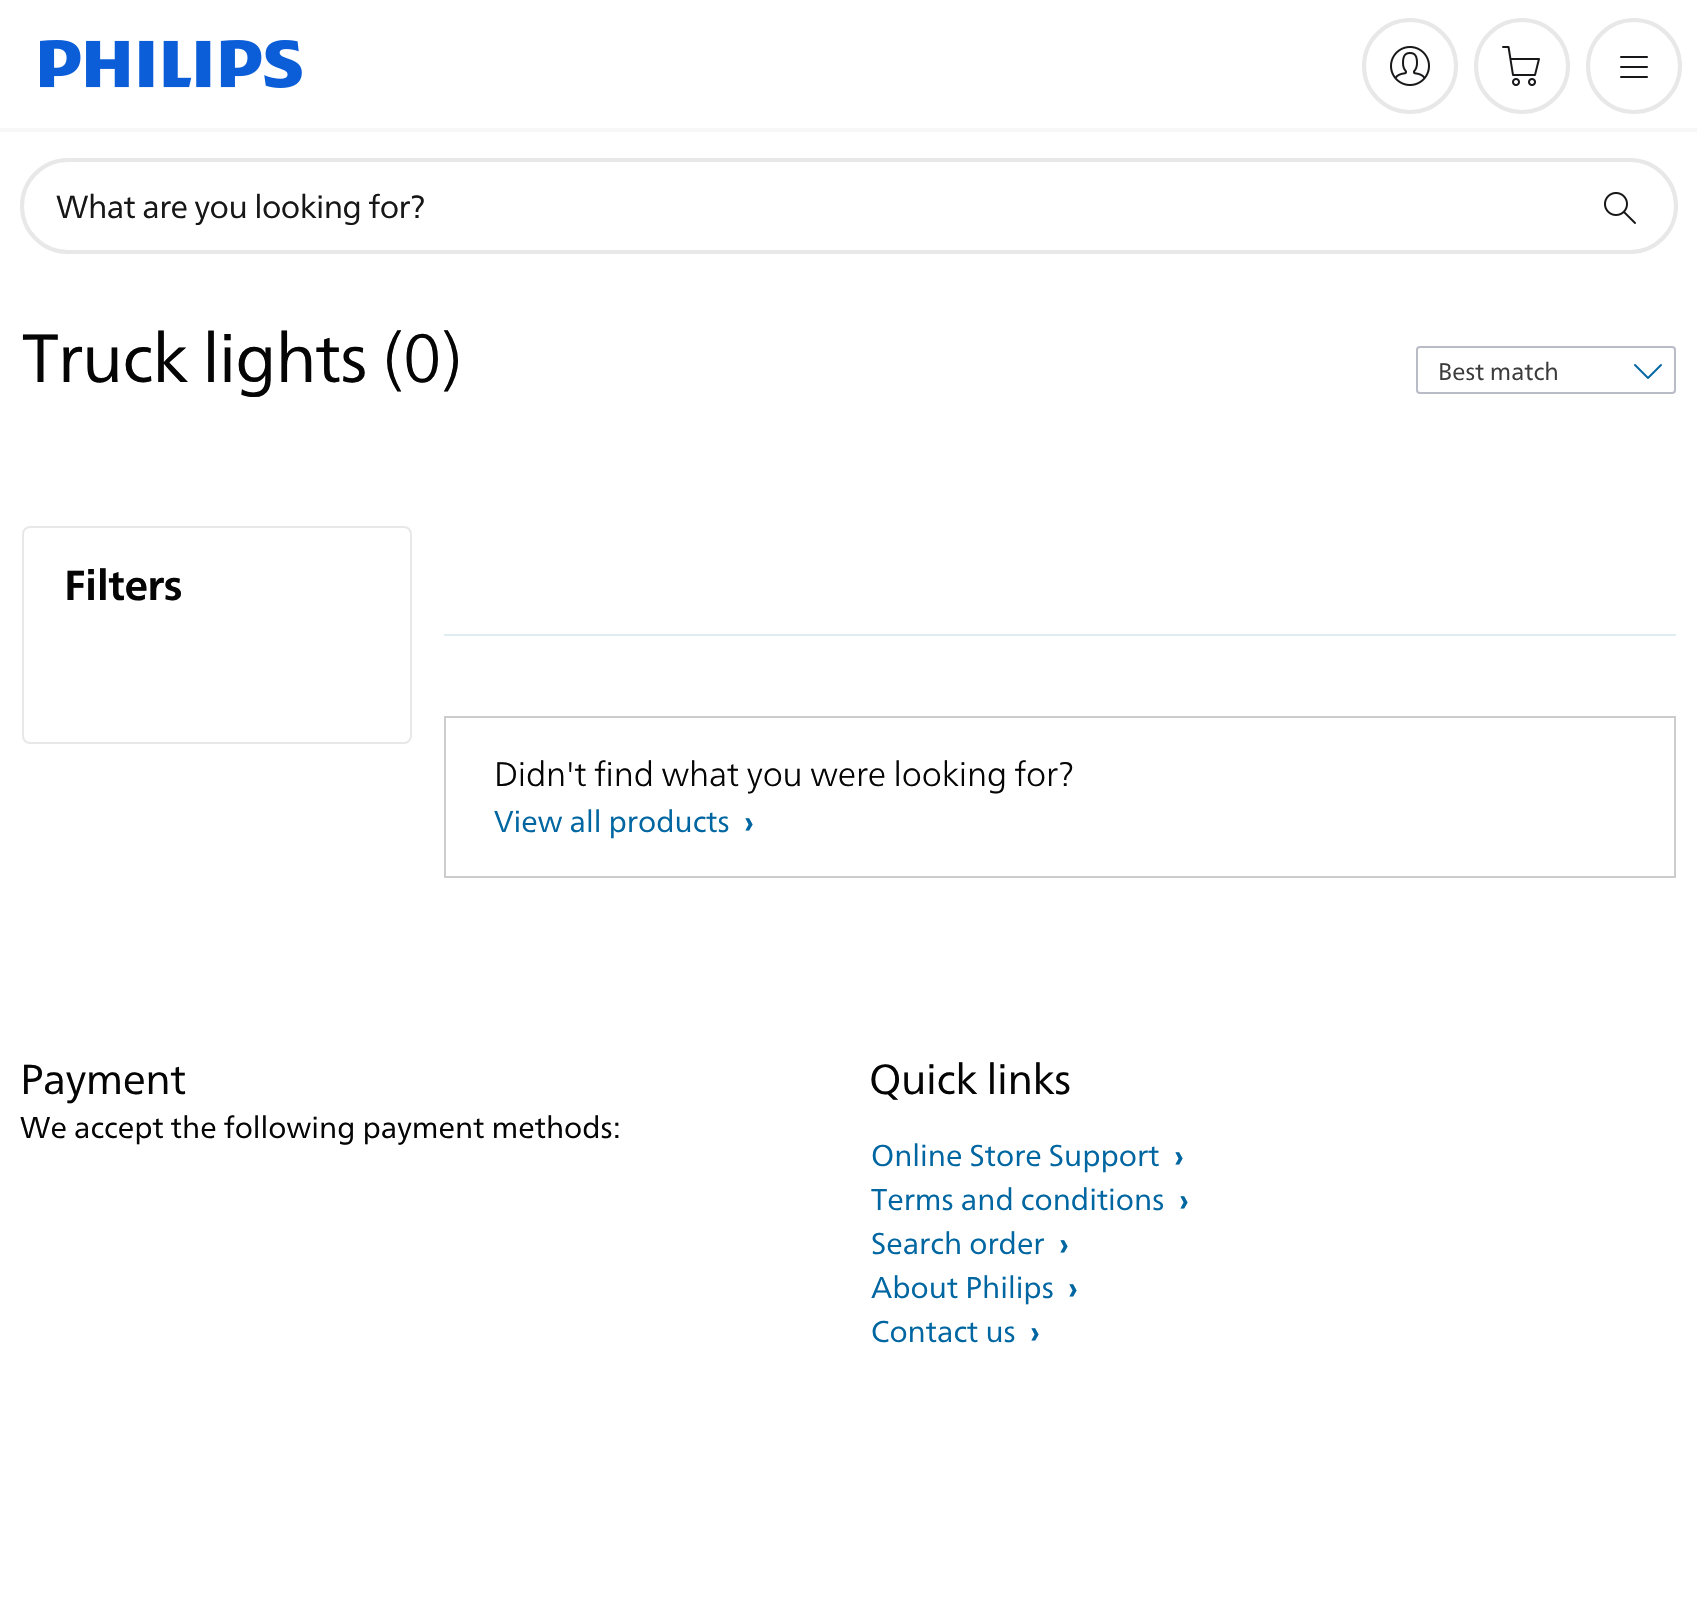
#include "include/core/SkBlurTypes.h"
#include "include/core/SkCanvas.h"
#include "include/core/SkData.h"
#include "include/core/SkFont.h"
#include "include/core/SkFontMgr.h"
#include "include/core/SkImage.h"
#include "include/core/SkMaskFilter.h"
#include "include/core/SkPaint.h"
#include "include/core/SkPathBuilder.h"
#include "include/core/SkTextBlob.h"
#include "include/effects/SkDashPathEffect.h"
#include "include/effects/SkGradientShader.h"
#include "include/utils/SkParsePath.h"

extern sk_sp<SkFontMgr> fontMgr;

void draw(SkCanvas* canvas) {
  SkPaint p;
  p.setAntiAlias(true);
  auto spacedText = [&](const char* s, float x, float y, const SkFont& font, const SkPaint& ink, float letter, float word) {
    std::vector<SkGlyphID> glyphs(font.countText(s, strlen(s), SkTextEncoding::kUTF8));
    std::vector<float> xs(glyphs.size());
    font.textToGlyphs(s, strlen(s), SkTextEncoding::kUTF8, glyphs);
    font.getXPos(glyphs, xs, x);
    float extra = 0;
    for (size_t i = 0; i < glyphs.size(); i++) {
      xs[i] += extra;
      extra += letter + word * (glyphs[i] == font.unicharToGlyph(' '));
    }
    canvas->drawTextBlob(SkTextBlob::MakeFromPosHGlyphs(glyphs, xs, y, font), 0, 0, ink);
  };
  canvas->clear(SK_ColorWHITE);
  canvas->drawImageRect(SkImages::DeferredFromEncodedData(SkData::MakeFromFileName("images/1.png")), SkRect::MakeLTRB(40, 40, 302, 88), SkSamplingOptions());
  p.setColor(SkColorSetRGB(247, 247, 247));
  canvas->drawRect(SkRect::MakeLTRB(0, 128, 1697, 132), p);
  p.setStyle(SkPaint::kStroke_Style);
  p.setStrokeWidth(4);
  p.setColor(SkColorSetRGB(232, 232, 232));
  canvas->drawCircle(1410, 66, 46, p);
  canvas->drawImageRect(SkImages::DeferredFromEncodedData(SkData::MakeFromFileName("images/2.png")), SkRect::MakeLTRB(1390, 46, 1430, 86), SkSamplingOptions());
  canvas->drawCircle(1522, 66, 46, p);
  canvas->drawImageRect(SkImages::DeferredFromEncodedData(SkData::MakeFromFileName("images/3.png")), SkRect::MakeLTRB(1502, 46, 1540, 86), SkSamplingOptions());
  canvas->drawCircle(1634, 66, 46, p);
  canvas->drawImageRect(SkImages::DeferredFromEncodedData(SkData::MakeFromFileName("images/4.png")), SkRect::MakeLTRB(1620, 56, 1648, 78), SkSamplingOptions());
  canvas->drawRoundRect(SkRect::MakeLTRB(22, 160, 1676, 252), 46, 46, p);
  canvas->drawImageRect(SkImages::DeferredFromEncodedData(SkData::MakeFromFileName("images/5.png")), SkRect::MakeLTRB(1604, 192, 1636, 224), SkSamplingOptions());
  p.setStrokeWidth(2);
  p.setColor(SkColorSetRGB(185, 187, 199));
  canvas->drawRoundRect(SkRect::MakeLTRB(1417, 347, 1675, 393), 3, 3, p);
  canvas->drawImageRect(SkImages::DeferredFromEncodedData(SkData::MakeFromFileName("images/6.png")), SkRect::MakeLTRB(1634, 364, 1662, 379), SkSamplingOptions());
  p.setColor(SkColorSetRGB(232, 232, 232));
  canvas->drawRoundRect(SkRect::MakeLTRB(23, 527, 411, 743), 7, 7, p);
  p.setStyle(SkPaint::kFill_Style);
  p.setColor(SkColorSetRGB(223, 237, 240));
  canvas->drawRect(SkRect::MakeLTRB(444, 634, 1676, 636), p);
  p.setStyle(SkPaint::kStroke_Style);
  p.setColor(SkColorSetRGB(204, 204, 204));
  canvas->drawRect(SkRect::MakeLTRB(445, 717, 1675, 877), p);
  SkFont font1(fontMgr->matchFamilyStyle("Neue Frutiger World", SkFontStyle::Normal()), 32);
  font1.setSubpixel(true);
  p.setStyle(SkPaint::kFill_Style);
  p.setColor(SkColorSetRGB(23, 23, 23));
  spacedText("What are you looking for?", 56, 218, font1, p, -0.55f, 0);
  SkFont font2(fontMgr->matchFamilyStyle("Neue Frutiger World", SkFontStyle::Normal()), 68);
  font2.setSubpixel(true);
  p.setColor(SkColorSetRGB(5, 5, 5));
  spacedText("Truck lights", 22, 382, font2, p, -1, 0);
  SkFont font3(fontMgr->matchFamilyStyle("Neue Frutiger World", SkFontStyle(300, SkFontStyle::kNormal_Width, SkFontStyle::kUpright_Slant)), 68);
  font3.setSubpixel(true);
  spacedText("(0)", 382, 382, font3, p, -1, 0);
  SkFont font4(fontMgr->matchFamilyStyle("Neue Frutiger World", SkFontStyle::Normal()), 24);
  font4.setSubpixel(true);
  p.setColor(SkColorSetRGB(60, 60, 60));
  canvas->drawString("Best match", 1438, 380, font4, p);
  SkFont font5(fontMgr->matchFamilyStyle("Neue Frutiger World", SkFontStyle::Bold()), 42);
  font5.setSubpixel(true);
  p.setColor(SkColorSetRGB(5, 5, 5));
  spacedText("Filters", 64, 600, font5, p, -0.4f, 0);
  SkFont font6(fontMgr->matchFamilyStyle("Neue Frutiger World", SkFontStyle(300, SkFontStyle::kNormal_Width, SkFontStyle::kUpright_Slant)), 34);
  font6.setSubpixel(true);
  spacedText("Didn't find what you were looking for?", 494, 786, font6, p, -0.2f, 0);
  SkFont font7(fontMgr->matchFamilyStyle("Neue Frutiger World", SkFontStyle::Normal()), 30);
  font7.setSubpixel(true);
  p.setColor(SkColorSetRGB(0, 102, 161));
  canvas->drawString("View all products", 494, 832, font7, p);
  SkFont font8(fontMgr->matchFamilyStyle("Neue Frutiger World", SkFontStyle::Bold()), 30);
  font8.setSubpixel(true);
  canvas->drawString("›", 744, 832, font8, p);
  SkFont font9(fontMgr->matchFamilyStyle("Neue Frutiger World", SkFontStyle::Normal()), 42);
  font9.setSubpixel(true);
  p.setColor(SkColorSetRGB(5, 5, 5));
  spacedText("Payment", 20, 1094, font9, p, -0.4f, 0);
  canvas->drawString("We accept the following payment methods:", 20, 1138, font7, p);
  spacedText("Quick links", 869, 1094, font9, p, -0.4f, 0);
  p.setColor(SkColorSetRGB(0, 102, 161));
  canvas->drawString("Online Store Support", 871, 1166, font7, p);
  canvas->drawString("›", 1174, 1166, font8, p);
  canvas->drawString("Terms and conditions", 871, 1210, font7, p);
  canvas->drawString("›", 1179, 1210, font8, p);
  canvas->drawString("Search order", 871, 1254, font7, p);
  canvas->drawString("›", 1059, 1254, font8, p);
  canvas->drawString("About Philips", 871, 1298, font7, p);
  canvas->drawString("›", 1068, 1298, font8, p);
  canvas->drawString("Contact us", 871, 1342, font7, p);
  canvas->drawString("›", 1030, 1342, font8, p);
}
